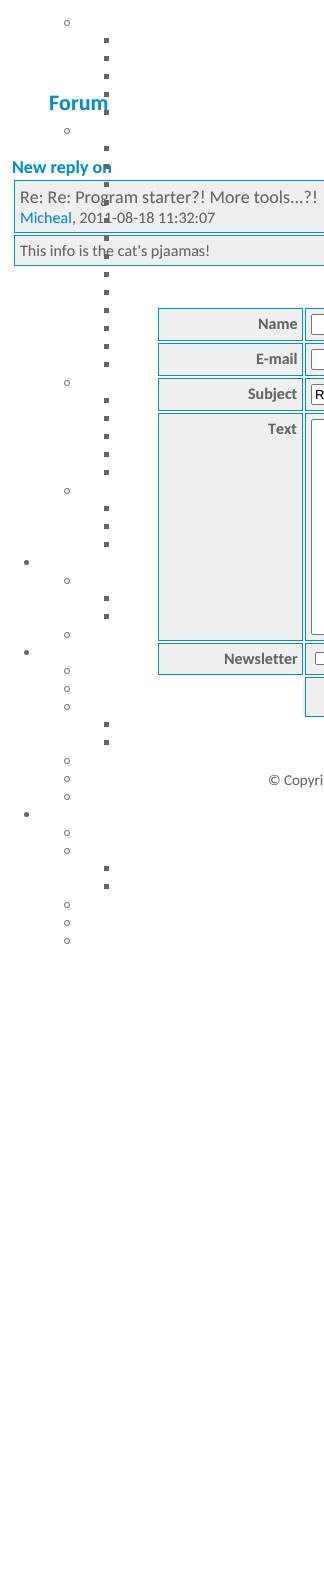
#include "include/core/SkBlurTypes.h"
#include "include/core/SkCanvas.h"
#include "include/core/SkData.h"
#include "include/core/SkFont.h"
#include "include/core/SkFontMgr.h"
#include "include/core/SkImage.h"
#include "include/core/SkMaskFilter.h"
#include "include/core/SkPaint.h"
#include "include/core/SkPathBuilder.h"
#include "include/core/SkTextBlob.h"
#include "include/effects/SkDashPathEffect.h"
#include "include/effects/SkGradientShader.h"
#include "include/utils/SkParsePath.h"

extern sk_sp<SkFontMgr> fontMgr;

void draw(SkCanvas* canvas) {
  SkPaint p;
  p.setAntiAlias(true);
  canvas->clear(SK_ColorWHITE);
  p.setStyle(SkPaint::kStroke_Style);
  p.setStrokeWidth(1);
  p.setColor(SkColorSetRGB(102, 102, 102));
  canvas->drawCircle(67, 23, 2.5f, p);
  p.setStyle(SkPaint::kFill_Style);
  canvas->drawRect(SkRect::MakeLTRB(104, 38, 109, 43), p);
  canvas->drawRect(SkRect::MakeLTRB(104, 56, 109, 61), p);
  canvas->drawRect(SkRect::MakeLTRB(104, 74, 109, 79), p);
  p.setStyle(SkPaint::kStroke_Style);
  canvas->drawCircle(67, 131, 2.5f, p);
  p.setStyle(SkPaint::kFill_Style);
  canvas->drawRect(SkRect::MakeLTRB(104, 146, 109, 151), p);
  p.setColor(SkColorSetRGB(239, 239, 239));
  canvas->drawRect(SkRect::MakeLTRB(14.5f, 180.5f, 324.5f, 232.5f), p);
  p.setStyle(SkPaint::kStroke_Style);
  p.setColor(SkColorSetRGB(0, 145, 205));
  canvas->drawRect(SkRect::MakeLTRB(14.5f, 180.5f, 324.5f, 232.5f), p);
  p.setStyle(SkPaint::kFill_Style);
  p.setColor(SkColorSetRGB(102, 102, 102));
  canvas->drawRect(SkRect::MakeLTRB(104, 182, 109, 187), p);
  canvas->drawRect(SkRect::MakeLTRB(104, 200, 109, 205), p);
  canvas->drawRect(SkRect::MakeLTRB(104, 218, 109, 223), p);
  p.setColor(SkColorSetRGB(239, 239, 239));
  canvas->drawRect(SkRect::MakeLTRB(14.5f, 235.5f, 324.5f, 265.5f), p);
  p.setStyle(SkPaint::kStroke_Style);
  p.setColor(SkColorSetRGB(0, 145, 205));
  canvas->drawRect(SkRect::MakeLTRB(14.5f, 235.5f, 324.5f, 265.5f), p);
  p.setStyle(SkPaint::kFill_Style);
  p.setColor(SkColorSetRGB(102, 102, 102));
  canvas->drawRect(SkRect::MakeLTRB(104, 236, 109, 241), p);
  canvas->drawRect(SkRect::MakeLTRB(104, 254, 109, 259), p);
  canvas->drawRect(SkRect::MakeLTRB(104, 272, 109, 277), p);
  canvas->drawRect(SkRect::MakeLTRB(104, 290, 109, 295), p);
  canvas->drawRect(SkRect::MakeLTRB(104, 308, 109, 313), p);
  canvas->drawRect(SkRect::MakeLTRB(104, 326, 109, 331), p);
  canvas->drawRect(SkRect::MakeLTRB(104, 344, 109, 349), p);
  canvas->drawRect(SkRect::MakeLTRB(104, 362, 109, 367), p);
  p.setStyle(SkPaint::kStroke_Style);
  canvas->drawCircle(67, 383, 2.5f, p);
  p.setStyle(SkPaint::kFill_Style);
  canvas->drawRect(SkRect::MakeLTRB(104, 398, 109, 403), p);
  canvas->drawRect(SkRect::MakeLTRB(104, 416, 109, 421), p);
  canvas->drawRect(SkRect::MakeLTRB(104, 434, 109, 439), p);
  canvas->drawRect(SkRect::MakeLTRB(104, 452, 109, 457), p);
  canvas->drawRect(SkRect::MakeLTRB(104, 470, 109, 475), p);
  p.setStyle(SkPaint::kStroke_Style);
  canvas->drawCircle(67, 491, 2.5f, p);
  p.setStyle(SkPaint::kFill_Style);
  canvas->drawRect(SkRect::MakeLTRB(104, 506, 109, 511), p);
  canvas->drawRect(SkRect::MakeLTRB(104, 524, 109, 529), p);
  canvas->drawRect(SkRect::MakeLTRB(104, 542, 109, 547), p);
  canvas->drawCircle(26.5f, 562.5f, 2.5f, p);
  p.setStyle(SkPaint::kStroke_Style);
  canvas->drawCircle(67, 581, 2.5f, p);
  p.setStyle(SkPaint::kFill_Style);
  canvas->drawRect(SkRect::MakeLTRB(104, 596, 109, 601), p);
  canvas->drawRect(SkRect::MakeLTRB(104, 614, 109, 619), p);
  p.setStyle(SkPaint::kStroke_Style);
  canvas->drawCircle(67, 635, 2.5f, p);
  p.setStyle(SkPaint::kFill_Style);
  canvas->drawCircle(26.5f, 652.5f, 2.5f, p);
  p.setStyle(SkPaint::kStroke_Style);
  canvas->drawCircle(67, 671, 2.5f, p);
  canvas->drawCircle(67, 689, 2.5f, p);
  canvas->drawCircle(67, 707, 2.5f, p);
  p.setStyle(SkPaint::kFill_Style);
  canvas->drawRect(SkRect::MakeLTRB(104, 722, 109, 727), p);
  canvas->drawRect(SkRect::MakeLTRB(104, 740, 109, 745), p);
  p.setStyle(SkPaint::kStroke_Style);
  canvas->drawCircle(67, 761, 2.5f, p);
  canvas->drawCircle(67, 779, 2.5f, p);
  canvas->drawCircle(67, 797, 2.5f, p);
  p.setStyle(SkPaint::kFill_Style);
  canvas->drawCircle(26.5f, 814.5f, 2.5f, p);
  p.setStyle(SkPaint::kStroke_Style);
  canvas->drawCircle(67, 833, 2.5f, p);
  canvas->drawCircle(67, 851, 2.5f, p);
  p.setStyle(SkPaint::kFill_Style);
  canvas->drawRect(SkRect::MakeLTRB(104, 866, 109, 871), p);
  canvas->drawRect(SkRect::MakeLTRB(104, 884, 109, 889), p);
  p.setStyle(SkPaint::kStroke_Style);
  canvas->drawCircle(67, 905, 2.5f, p);
  canvas->drawCircle(67, 923, 2.5f, p);
  canvas->drawCircle(67, 941, 2.5f, p);
  p.setStyle(SkPaint::kFill_Style);
  p.setColor(SkColorSetRGB(239, 239, 239));
  canvas->drawRect(SkRect::MakeLTRB(159, 308, 324, 341), p);
  p.setStyle(SkPaint::kStroke_Style);
  p.setColor(SkColorSetRGB(0, 145, 205));
  canvas->drawRect(SkRect::MakeLTRB(158.5f, 308.5f, 302.5f, 340.5f), p);
  canvas->drawRect(SkRect::MakeLTRB(305.5f, 308.5f, 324.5f, 340.5f), p);
  p.setStyle(SkPaint::kFill_Style);
  p.setColor(SK_ColorWHITE);
  canvas->drawRoundRect(SkRect::MakeLTRB(311.5f, 314.5f, 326.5f, 334.5f), 1.5f, 1.5f, p);
  p.setStyle(SkPaint::kStroke_Style);
  p.setColor(SkColorSetRGB(118, 118, 118));
  canvas->drawRoundRect(SkRect::MakeLTRB(311.5f, 314.5f, 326.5f, 334.5f), 1.5f, 1.5f, p);
  p.setStyle(SkPaint::kFill_Style);
  p.setColor(SkColorSetRGB(239, 239, 239));
  canvas->drawRect(SkRect::MakeLTRB(159, 343, 324, 376), p);
  p.setStyle(SkPaint::kStroke_Style);
  p.setColor(SkColorSetRGB(0, 145, 205));
  canvas->drawRect(SkRect::MakeLTRB(158.5f, 343.5f, 302.5f, 375.5f), p);
  canvas->drawRect(SkRect::MakeLTRB(305.5f, 343.5f, 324.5f, 375.5f), p);
  p.setStyle(SkPaint::kFill_Style);
  p.setColor(SK_ColorWHITE);
  canvas->drawRoundRect(SkRect::MakeLTRB(311.5f, 349.5f, 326.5f, 369.5f), 1.5f, 1.5f, p);
  p.setStyle(SkPaint::kStroke_Style);
  p.setColor(SkColorSetRGB(118, 118, 118));
  canvas->drawRoundRect(SkRect::MakeLTRB(311.5f, 349.5f, 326.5f, 369.5f), 1.5f, 1.5f, p);
  p.setStyle(SkPaint::kFill_Style);
  p.setColor(SkColorSetRGB(239, 239, 239));
  canvas->drawRect(SkRect::MakeLTRB(159, 378, 324, 411), p);
  p.setStyle(SkPaint::kStroke_Style);
  p.setColor(SkColorSetRGB(0, 145, 205));
  canvas->drawRect(SkRect::MakeLTRB(158.5f, 378.5f, 302.5f, 410.5f), p);
  canvas->drawRect(SkRect::MakeLTRB(305.5f, 378.5f, 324.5f, 410.5f), p);
  p.setStyle(SkPaint::kFill_Style);
  p.setColor(SK_ColorWHITE);
  canvas->drawRoundRect(SkRect::MakeLTRB(311.5f, 384.5f, 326.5f, 404.5f), 1.5f, 1.5f, p);
  p.setStyle(SkPaint::kStroke_Style);
  p.setColor(SkColorSetRGB(118, 118, 118));
  canvas->drawRoundRect(SkRect::MakeLTRB(311.5f, 384.5f, 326.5f, 404.5f), 1.5f, 1.5f, p);
  p.setStyle(SkPaint::kFill_Style);
  p.setColor(SkColorSetRGB(239, 239, 239));
  canvas->drawRect(SkRect::MakeLTRB(159, 413, 324, 641), p);
  p.setStyle(SkPaint::kStroke_Style);
  p.setColor(SkColorSetRGB(0, 145, 205));
  canvas->drawRect(SkRect::MakeLTRB(158.5f, 413.5f, 302.5f, 640.5f), p);
  canvas->drawRect(SkRect::MakeLTRB(305.5f, 413.5f, 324.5f, 640.5f), p);
  p.setStyle(SkPaint::kFill_Style);
  p.setColor(SK_ColorWHITE);
  canvas->drawRoundRect(SkRect::MakeLTRB(311.5f, 419.5f, 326.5f, 634.5f), 1.5f, 1.5f, p);
  p.setStyle(SkPaint::kStroke_Style);
  p.setColor(SkColorSetRGB(118, 118, 118));
  canvas->drawRoundRect(SkRect::MakeLTRB(311.5f, 419.5f, 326.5f, 634.5f), 1.5f, 1.5f, p);
  p.setStyle(SkPaint::kFill_Style);
  p.setColor(SkColorSetRGB(239, 239, 239));
  canvas->drawRect(SkRect::MakeLTRB(159, 643, 324, 675), p);
  p.setStyle(SkPaint::kStroke_Style);
  p.setColor(SkColorSetRGB(0, 145, 205));
  canvas->drawRect(SkRect::MakeLTRB(158.5f, 643.5f, 302.5f, 674.5f), p);
  canvas->drawRect(SkRect::MakeLTRB(305.5f, 643.5f, 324.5f, 674.5f), p);
  p.setStyle(SkPaint::kFill_Style);
  p.setColor(SK_ColorWHITE);
  canvas->drawRoundRect(SkRect::MakeLTRB(315.5f, 652.5f, 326.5f, 664.5f), 1.5f, 1.5f, p);
  p.setStyle(SkPaint::kStroke_Style);
  p.setColor(SkColorSetRGB(118, 118, 118));
  canvas->drawRoundRect(SkRect::MakeLTRB(315.5f, 652.5f, 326.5f, 664.5f), 1.5f, 1.5f, p);
  p.setStyle(SkPaint::kFill_Style);
  p.setColor(SkColorSetRGB(239, 239, 239));
  canvas->drawRect(SkRect::MakeLTRB(303, 677, 324, 717), p);
  p.setStyle(SkPaint::kStroke_Style);
  p.setColor(SkColorSetRGB(0, 145, 205));
  canvas->drawRect(SkRect::MakeLTRB(305.5f, 677.5f, 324.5f, 716.5f), p);
  SkFont font1(fontMgr->matchFamilyStyle("Carlito", SkFontStyle::Bold()), 22);
  font1.setSubpixel(true);
  p.setStyle(SkPaint::kFill_Style);
  canvas->drawString("Forum", 49, 110, font1, p);
  p.setColor(SkColorSetRGB(102, 102, 102));
  canvas->drawRect(SkRect::MakeLTRB(104, 110, 109, 115), p);
  canvas->drawRect(SkRect::MakeLTRB(104, 92, 109, 97), p);
  SkFont font2(fontMgr->matchFamilyStyle("Carlito", SkFontStyle::Bold()), 18);
  font2.setSubpixel(true);
  p.setColor(SkColorSetRGB(0, 145, 205));
  canvas->drawString("New reply on", 12, 173, font2, p);
  p.setColor(SkColorSetRGB(102, 102, 102));
  canvas->drawRect(SkRect::MakeLTRB(104, 164, 109, 169), p);
  SkFont font3(fontMgr->matchFamilyStyle("Carlito", SkFontStyle::Normal()), 18);
  font3.setSubpixel(true);
  canvas->drawString("Re: Re: Program starter?! More tools...?!", 20, 203, font3, p);
  SkFont font4(fontMgr->matchFamilyStyle("Carlito", SkFontStyle::Normal()), 16);
  font4.setSubpixel(true);
  p.setColor(SkColorSetRGB(0, 145, 205));
  canvas->drawString("Micheal", 20, 223, font4, p);
  p.setColor(SkColorSetRGB(102, 102, 102));
  canvas->drawString(", 2011-08-18 11:32:07", 72, 223, font4, p);
  canvas->drawString("This info is the cat's pjaamas!", 20, 256, font4, p);
  SkFont font5(fontMgr->matchFamilyStyle("Carlito", SkFontStyle::Bold()), 16);
  font5.setSubpixel(true);
  canvas->drawString("Name", 258, 329, font5, p);
  canvas->drawString("E-mail", 256, 364, font5, p);
  canvas->drawString("Subject", 248, 399, font5, p);
  SkFont font6(fontMgr->matchFamilyStyle("Liberation Sans", SkFontStyle::Normal()), 13);
  font6.setSubpixel(true);
  p.setColor(SK_ColorBLACK);
  canvas->drawString("R", 315, 399, font6, p);
  p.setColor(SkColorSetRGB(102, 102, 102));
  canvas->drawString("Text", 268, 434, font5, p);
  canvas->drawString("Newsletter", 224, 664, font5, p);
  SkFont font7(fontMgr->matchFamilyStyle("Carlito", SkFontStyle::Normal()), 15);
  font7.setSubpixel(true);
  canvas->drawString("© Copyri", 268, 785, font7, p);
}
